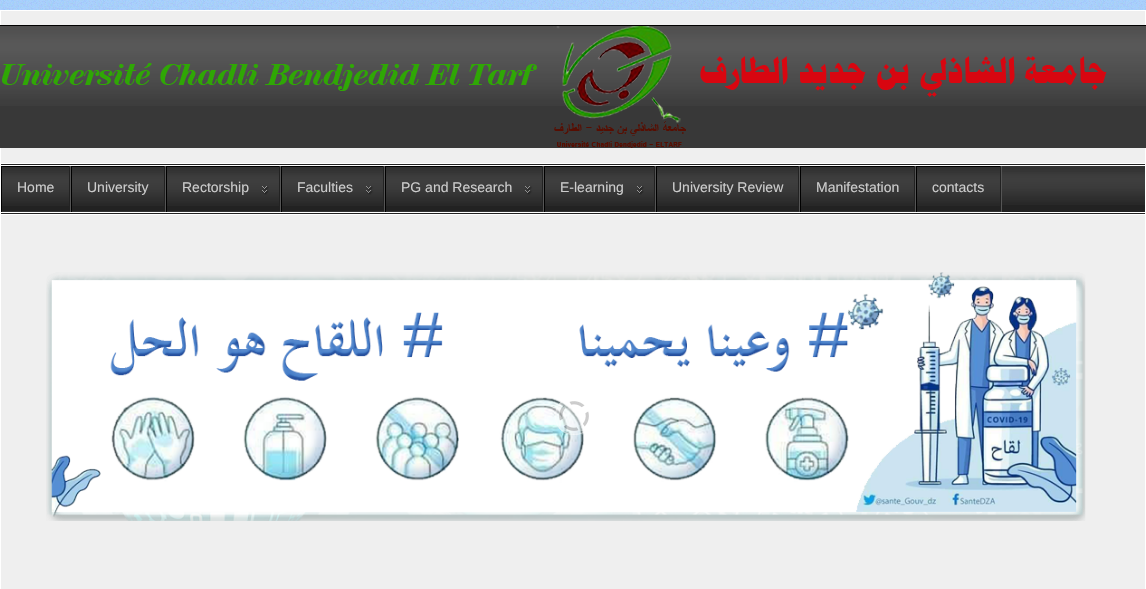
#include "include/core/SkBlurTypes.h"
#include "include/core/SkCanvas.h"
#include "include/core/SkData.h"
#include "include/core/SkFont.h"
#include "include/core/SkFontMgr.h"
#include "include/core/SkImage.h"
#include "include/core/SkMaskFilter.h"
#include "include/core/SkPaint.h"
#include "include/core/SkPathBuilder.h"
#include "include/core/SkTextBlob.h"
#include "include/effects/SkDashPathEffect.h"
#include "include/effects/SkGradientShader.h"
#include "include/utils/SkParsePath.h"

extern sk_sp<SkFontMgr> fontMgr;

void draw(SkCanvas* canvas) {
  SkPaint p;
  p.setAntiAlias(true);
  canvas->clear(SkColorSetRGB(162, 205, 253));
  canvas->drawImageRect(SkImages::DeferredFromEncodedData(SkData::MakeFromFileName("images/1.png")), SkRect::MakeLTRB(0, 0, 1146, 10), SkSamplingOptions());
  p.setColor(SkColorSetRGB(239, 239, 239));
  canvas->drawRect(SkRect::MakeLTRB(0.5f, 10.5f, 1145.5f, 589.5f), p);
  p.setStyle(SkPaint::kStroke_Style);
  p.setStrokeWidth(1);
  p.setColor(SK_ColorWHITE);
  canvas->drawRect(SkRect::MakeLTRB(0.5f, 10.5f, 1145.5f, 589.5f), p);
  p.setStyle(SkPaint::kFill_Style);
  p.setColor(SkColorSetRGB(56, 56, 56));
  canvas->drawRect(SkRect::MakeLTRB(0, 26, 1146, 148), p);
  canvas->drawImageRect(SkImages::DeferredFromEncodedData(SkData::MakeFromFileName("images/2.png")), SkRect::MakeLTRB(0, 26, 1146, 106), SkSamplingOptions());
  p.setColor(SK_ColorBLACK);
  canvas->drawRect(SkRect::MakeLTRB(0, 25, 1146, 26), p);
  canvas->drawImageRect(SkImages::DeferredFromEncodedData(SkData::MakeFromFileName("images/3.png")), SkRect::MakeLTRB(2, 26, 1107, 148), SkSamplingOptions());
  p.setColor(SkColorSetRGB(34, 34, 34));
  canvas->drawRect(SkRect::MakeLTRB(1, 164, 1145, 214), p);
  canvas->drawImageRect(SkImages::DeferredFromEncodedData(SkData::MakeFromFileName("images/4.png")), SkRect::MakeLTRB(1002, 166, 1145, 205), SkSamplingOptions());
  p.setColor(SK_ColorWHITE);
  canvas->drawRect(SkRect::MakeLTRB(1, 163, 1145, 164), p);
  canvas->drawRect(SkRect::MakeLTRB(1, 165, 1145, 166), p);
  canvas->drawRect(SkRect::MakeLTRB(1, 212, 1145, 213), p);
  canvas->drawRect(SkRect::MakeLTRB(1, 214, 1145, 215), p);
  p.setColor(SkColorSetRGB(85, 85, 85));
  canvas->drawRect(SkRect::MakeLTRB(70, 166, 71, 212), p);
  canvas->drawImageRect(SkImages::DeferredFromEncodedData(SkData::MakeFromFileName("images/5.png")), SkRect::MakeLTRB(2, 167, 69, 206), SkSamplingOptions());
  p.setColor(SK_ColorBLACK);
  canvas->drawRect(SkRect::MakeLTRB(1, 166, 70, 167), p);
  p.setColor(SkColorSetRGB(34, 34, 34));
  canvas->drawRect(SkRect::MakeLTRB(69, 166, 70, 167), p);
  p.setColor(SkColorSetRGB(51, 51, 51));
  canvas->drawRect(SkRect::MakeLTRB(1, 211, 70, 212), p);
  p.setColor(SK_ColorBLACK);
  canvas->drawRect(SkRect::MakeLTRB(1, 166, 2, 212), p);
  p.setColor(SkColorSetRGB(85, 85, 85));
  canvas->drawRect(SkRect::MakeLTRB(165, 166, 166, 212), p);
  canvas->drawImageRect(SkImages::DeferredFromEncodedData(SkData::MakeFromFileName("images/6.png")), SkRect::MakeLTRB(72, 167, 164, 206), SkSamplingOptions());
  p.setColor(SK_ColorBLACK);
  canvas->drawRect(SkRect::MakeLTRB(71, 166, 165, 167), p);
  p.setColor(SkColorSetRGB(34, 34, 34));
  canvas->drawRect(SkRect::MakeLTRB(164, 166, 165, 167), p);
  p.setColor(SkColorSetRGB(51, 51, 51));
  canvas->drawRect(SkRect::MakeLTRB(71, 211, 165, 212), p);
  p.setColor(SK_ColorBLACK);
  canvas->drawRect(SkRect::MakeLTRB(71, 166, 72, 212), p);
  p.setColor(SkColorSetRGB(85, 85, 85));
  canvas->drawRect(SkRect::MakeLTRB(280, 166, 281, 212), p);
  canvas->drawImageRect(SkImages::DeferredFromEncodedData(SkData::MakeFromFileName("images/7.png")), SkRect::MakeLTRB(167, 167, 279, 206), SkSamplingOptions());
  p.setColor(SK_ColorBLACK);
  canvas->drawRect(SkRect::MakeLTRB(166, 166, 280, 167), p);
  p.setColor(SkColorSetRGB(34, 34, 34));
  canvas->drawRect(SkRect::MakeLTRB(279, 166, 280, 167), p);
  p.setColor(SkColorSetRGB(51, 51, 51));
  canvas->drawRect(SkRect::MakeLTRB(166, 211, 280, 212), p);
  p.setColor(SK_ColorBLACK);
  canvas->drawRect(SkRect::MakeLTRB(166, 166, 167, 212), p);
  p.setColor(SkColorSetRGB(85, 85, 85));
  canvas->drawRect(SkRect::MakeLTRB(384, 166, 385, 212), p);
  canvas->drawImageRect(SkImages::DeferredFromEncodedData(SkData::MakeFromFileName("images/8.png")), SkRect::MakeLTRB(282, 167, 383, 206), SkSamplingOptions());
  p.setColor(SK_ColorBLACK);
  canvas->drawRect(SkRect::MakeLTRB(281, 166, 384, 167), p);
  p.setColor(SkColorSetRGB(34, 34, 34));
  canvas->drawRect(SkRect::MakeLTRB(383, 166, 384, 167), p);
  p.setColor(SkColorSetRGB(51, 51, 51));
  canvas->drawRect(SkRect::MakeLTRB(281, 211, 384, 212), p);
  p.setColor(SK_ColorBLACK);
  canvas->drawRect(SkRect::MakeLTRB(281, 166, 282, 212), p);
  p.setColor(SkColorSetRGB(85, 85, 85));
  canvas->drawRect(SkRect::MakeLTRB(543, 166, 544, 212), p);
  canvas->drawImageRect(SkImages::DeferredFromEncodedData(SkData::MakeFromFileName("images/9.png")), SkRect::MakeLTRB(386, 167, 542, 206), SkSamplingOptions());
  p.setColor(SK_ColorBLACK);
  canvas->drawRect(SkRect::MakeLTRB(385, 166, 543, 167), p);
  p.setColor(SkColorSetRGB(34, 34, 34));
  canvas->drawRect(SkRect::MakeLTRB(542, 166, 543, 167), p);
  p.setColor(SkColorSetRGB(51, 51, 51));
  canvas->drawRect(SkRect::MakeLTRB(385, 211, 543, 212), p);
  p.setColor(SK_ColorBLACK);
  canvas->drawRect(SkRect::MakeLTRB(385, 166, 386, 212), p);
  p.setColor(SkColorSetRGB(85, 85, 85));
  canvas->drawRect(SkRect::MakeLTRB(655, 166, 656, 212), p);
  canvas->drawImageRect(SkImages::DeferredFromEncodedData(SkData::MakeFromFileName("images/10.png")), SkRect::MakeLTRB(545, 167, 654, 206), SkSamplingOptions());
  p.setColor(SK_ColorBLACK);
  canvas->drawRect(SkRect::MakeLTRB(544, 166, 655, 167), p);
  p.setColor(SkColorSetRGB(34, 34, 34));
  canvas->drawRect(SkRect::MakeLTRB(654, 166, 655, 167), p);
  p.setColor(SkColorSetRGB(51, 51, 51));
  canvas->drawRect(SkRect::MakeLTRB(544, 211, 655, 212), p);
  p.setColor(SK_ColorBLACK);
  canvas->drawRect(SkRect::MakeLTRB(544, 166, 545, 212), p);
  p.setColor(SkColorSetRGB(85, 85, 85));
  canvas->drawRect(SkRect::MakeLTRB(799, 166, 800, 212), p);
  canvas->drawImageRect(SkImages::DeferredFromEncodedData(SkData::MakeFromFileName("images/11.png")), SkRect::MakeLTRB(657, 167, 798, 206), SkSamplingOptions());
  p.setColor(SK_ColorBLACK);
  canvas->drawRect(SkRect::MakeLTRB(656, 166, 799, 167), p);
  p.setColor(SkColorSetRGB(34, 34, 34));
  canvas->drawRect(SkRect::MakeLTRB(798, 166, 799, 167), p);
  p.setColor(SkColorSetRGB(51, 51, 51));
  canvas->drawRect(SkRect::MakeLTRB(656, 211, 799, 212), p);
  p.setColor(SK_ColorBLACK);
  canvas->drawRect(SkRect::MakeLTRB(656, 166, 657, 212), p);
  p.setColor(SkColorSetRGB(85, 85, 85));
  canvas->drawRect(SkRect::MakeLTRB(915, 166, 916, 212), p);
  canvas->drawImageRect(SkImages::DeferredFromEncodedData(SkData::MakeFromFileName("images/12.png")), SkRect::MakeLTRB(801, 167, 914, 206), SkSamplingOptions());
  p.setColor(SK_ColorBLACK);
  canvas->drawRect(SkRect::MakeLTRB(800, 166, 915, 167), p);
  p.setColor(SkColorSetRGB(34, 34, 34));
  canvas->drawRect(SkRect::MakeLTRB(914, 166, 915, 167), p);
  p.setColor(SkColorSetRGB(51, 51, 51));
  canvas->drawRect(SkRect::MakeLTRB(800, 211, 915, 212), p);
  p.setColor(SK_ColorBLACK);
  canvas->drawRect(SkRect::MakeLTRB(800, 166, 801, 212), p);
  p.setColor(SkColorSetRGB(85, 85, 85));
  canvas->drawRect(SkRect::MakeLTRB(1001, 166, 1002, 212), p);
  canvas->drawImageRect(SkImages::DeferredFromEncodedData(SkData::MakeFromFileName("images/13.png")), SkRect::MakeLTRB(917, 167, 1000, 206), SkSamplingOptions());
  p.setColor(SK_ColorBLACK);
  canvas->drawRect(SkRect::MakeLTRB(916, 166, 1001, 167), p);
  p.setColor(SkColorSetRGB(34, 34, 34));
  canvas->drawRect(SkRect::MakeLTRB(1000, 166, 1001, 167), p);
  p.setColor(SkColorSetRGB(51, 51, 51));
  canvas->drawRect(SkRect::MakeLTRB(916, 211, 1001, 212), p);
  p.setColor(SK_ColorBLACK);
  canvas->drawRect(SkRect::MakeLTRB(916, 166, 917, 212), p);
  canvas->drawImageRect(SkImages::DeferredFromEncodedData(SkData::MakeFromFileName("images/14.png")), SkRect::MakeLTRB(46, 272, 1086, 521), SkSamplingOptions());
  p.setColor(SkColorSetARGB(74, 255, 255, 255));
  canvas->drawRoundRect(SkRect::MakeLTRB(555, 397, 593, 435), 18, 18, p);
  canvas->drawImageRect(SkImages::DeferredFromEncodedData(SkData::MakeFromFileName("images/15.png")), SkRect::MakeLTRB(559, 401, 589, 431), SkSamplingOptions());
  p.setStyle(SkPaint::kStroke_Style);
  p.setColor(SkColorSetARGB(84, 255, 255, 255));
  canvas->drawRoundRect(SkRect::MakeLTRB(555.5f, 397.5f, 592.5f, 434.5f), 17.5f, 17.5f, p);
  SkFont font1(fontMgr->matchFamilyStyle("Liberation Sans", SkFontStyle::Normal()), 14);
  font1.setSubpixel(true);
  p.setStyle(SkPaint::kFill_Style);
  p.setColor(SkColorSetRGB(204, 204, 204));
  canvas->drawString("Home", 17, 192, font1, p);
  canvas->drawString("University", 87, 192, font1, p);
  canvas->drawString("Rectorship", 182, 192, font1, p);
  canvas->drawString("Faculties", 297, 192, font1, p);
  canvas->drawString("PG and Research", 401, 192, font1, p);
  canvas->drawString("E-learning", 560, 192, font1, p);
  canvas->drawString("University Review", 672, 192, font1, p);
  canvas->drawString("Manifestation", 816, 192, font1, p);
  canvas->drawString("contacts", 932, 192, font1, p);
}
